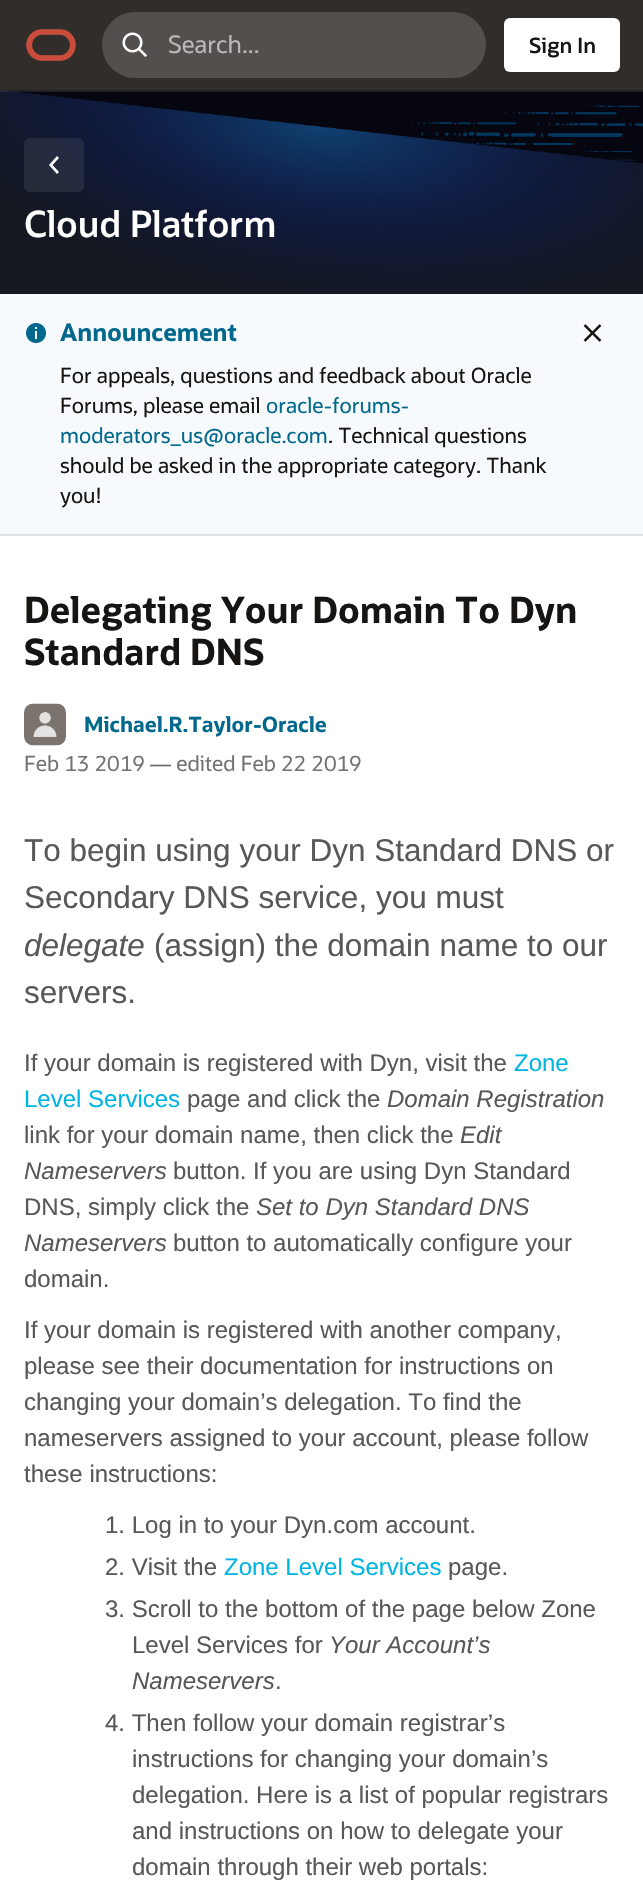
#include "include/core/SkBlurTypes.h"
#include "include/core/SkCanvas.h"
#include "include/core/SkData.h"
#include "include/core/SkFont.h"
#include "include/core/SkFontMgr.h"
#include "include/core/SkImage.h"
#include "include/core/SkMaskFilter.h"
#include "include/core/SkPaint.h"
#include "include/core/SkPathBuilder.h"
#include "include/core/SkTextBlob.h"
#include "include/effects/SkDashPathEffect.h"
#include "include/effects/SkGradientShader.h"
#include "include/utils/SkParsePath.h"

extern sk_sp<SkFontMgr> fontMgr;

void draw(SkCanvas* canvas) {
  SkPaint p;
  p.setAntiAlias(true);
  canvas->clear(SK_ColorWHITE);
  canvas->drawImageRect(SkImages::DeferredFromEncodedData(SkData::MakeFromFileName("images/3.png")), SkRect::MakeLTRB(0, 90, 643, 294), SkSamplingOptions());
  p.setStyle(SkPaint::kStroke_Style);
  p.setStrokeWidth(2);
  p.setColor(SkColorSetARGB(26, 255, 255, 255));
  canvas->drawRect(SkRect::MakeLTRB(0, 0, 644, 91), p);
  p.setStyle(SkPaint::kFill_Style);
  p.setColor(SkColorSetRGB(49, 45, 42));
  canvas->drawRect(SkRect::MakeLTRB(0, 0, 643, 90), p);
  canvas->drawImageRect(SkImages::DeferredFromEncodedData(SkData::MakeFromFileName("images/1.png")), SkRect::MakeLTRB(26, 29, 76, 61), SkSamplingOptions());
  p.setColor(SkColorSetRGB(82, 79, 76));
  canvas->drawRoundRect(SkRect::MakeLTRB(102, 12, 486, 78), 33, 33, p);
  canvas->drawImageRect(SkImages::DeferredFromEncodedData(SkData::MakeFromFileName("images/2.png")), SkRect::MakeLTRB(122, 32, 147, 57), SkSamplingOptions());
  p.setColor(SK_ColorWHITE);
  canvas->drawRoundRect(SkRect::MakeLTRB(504, 18, 620, 72), 6, 6, p);
  p.setColor(SkColorSetARGB(20, 251, 249, 248));
  canvas->drawRoundRect(SkRect::MakeLTRB(24, 138, 84, 192), 6, 6, p);
  p.setColor(SK_ColorWHITE);
  canvas->drawPath(SkPathBuilder().moveTo(59, 172).lineTo(57, 174).lineTo(49, 165).lineTo(57, 156).lineTo(59, 158).lineTo(52.5f, 165).close().detach(), p);
  p.setColor(SkColorSetRGB(246, 250, 252));
  canvas->drawRect(SkRect::MakeLTRB(0, 294, 643, 534), p);
  p.setColor(SkColorSetRGB(224, 227, 229));
  canvas->drawRect(SkRect::MakeLTRB(0, 534, 643, 536), p);
  canvas->drawImageRect(SkImages::DeferredFromEncodedData(SkData::MakeFromFileName("images/4.png")), SkRect::MakeLTRB(26, 323, 46, 343), SkSamplingOptions());
  canvas->drawImageRect(SkImages::DeferredFromEncodedData(SkData::MakeFromFileName("images/5.png")), SkRect::MakeLTRB(583, 324, 602, 342), SkSamplingOptions());
  canvas->drawImageRect(SkImages::DeferredFromEncodedData(SkData::MakeFromFileName("images/6.png")), SkRect::MakeLTRB(24, 703, 66, 746), SkSamplingOptions());
  SkFont font1(fontMgr->matchFamilyStyle("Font", SkFontStyle::Normal()), 24);
  font1.setSubpixel(true);
  p.setColor(SkColorSetRGB(186, 185, 183));
  canvas->drawString("Search...", 168, 53, font1, p);
  SkFont font2(fontMgr->matchFamilyStyle("Font", SkFontStyle(600, SkFontStyle::kNormal_Width, SkFontStyle::kUpright_Slant)), 21);
  font2.setSubpixel(true);
  p.setColor(SkColorSetRGB(22, 21, 19));
  canvas->drawString("Sign In", 529, 53, font2, p);
  SkFont font3(fontMgr->matchFamilyStyle("Font", SkFontStyle(600, SkFontStyle::kNormal_Width, SkFontStyle::kUpright_Slant)), 36);
  font3.setSubpixel(true);
  p.setColor(SK_ColorWHITE);
  canvas->drawString("Cloud Platform", 24, 237, font3, p);
  SkFont font4(fontMgr->matchFamilyStyle("Font", SkFontStyle::Bold()), 24);
  font4.setSubpixel(true);
  p.setColor(SkColorSetRGB(0, 104, 140));
  canvas->drawString("Announcement", 60, 341, font4, p);
  SkFont font5(fontMgr->matchFamilyStyle("Font", SkFontStyle::Normal()), 21);
  font5.setSubpixel(true);
  p.setColor(SkColorSetRGB(22, 21, 19));
  canvas->drawString("For appeals, questions and feedback about Oracle", 60, 383, font5, p);
  canvas->drawString("Forums, please email", 60, 413, font5, p);
  p.setColor(SkColorSetRGB(0, 104, 140));
  canvas->drawString("oracle-forums-", 266, 413, font5, p);
  canvas->drawString("moderators_us@oracle.com", 60, 443, font5, p);
  p.setColor(SkColorSetRGB(22, 21, 19));
  canvas->drawString(". Technical questions", 328, 443, font5, p);
  canvas->drawString("should be asked in the appropriate category. Thank", 60, 473, font5, p);
  canvas->drawString("you!", 60, 503, font5, p);
  SkFont font6(fontMgr->matchFamilyStyle("Font", SkFontStyle::Bold()), 36);
  font6.setSubpixel(true);
  canvas->drawString("Delegating Your Domain To Dyn", 24, 623, font6, p);
  canvas->drawString("Standard DNS", 24, 665, font6, p);
  SkFont font7(fontMgr->matchFamilyStyle("Font", SkFontStyle::Bold()), 21);
  font7.setSubpixel(true);
  p.setColor(SkColorSetRGB(0, 104, 140));
  canvas->drawString("Michael.R.Taylor-Oracle", 84, 732, font7, p);
  p.setColor(SkColorSetRGB(115, 115, 113));
  canvas->drawString("Feb 13 2019 — edited Feb 22 2019", 24, 771, font5, p);
  SkFont font8(fontMgr->matchFamilyStyle("Liberation Sans", SkFontStyle::Normal()), 31.5f);
  font8.setSubpixel(true);
  p.setColor(SkColorSetRGB(87, 88, 90));
  canvas->drawString("To begin using your Dyn Standard DNS or", 24, 861, font8, p);
  canvas->drawString("Secondary DNS service, you must", 24, 908, font8, p);
  SkFont font9(fontMgr->matchFamilyStyle("Liberation Sans", SkFontStyle::Italic()), 31.5f);
  font9.setSubpixel(true);
  canvas->drawString("delegate", 24, 956, font9, p);
  canvas->drawString("(assign) the domain name to our", 154, 956, font8, p);
  canvas->drawString("servers.", 24, 1003, font8, p);
  SkFont font10(fontMgr->matchFamilyStyle("Liberation Sans", SkFontStyle::Normal()), 24);
  font10.setSubpixel(true);
  canvas->drawString("If your domain is registered with Dyn, visit the", 24, 1071, font10, p);
  p.setColor(SkColorSetRGB(0, 181, 226));
  canvas->drawString("Zone", 514, 1071, font10, p);
  canvas->drawString("Level Services", 24, 1107, font10, p);
  p.setColor(SkColorSetRGB(87, 88, 90));
  canvas->drawString("page and click the", 187, 1107, font10, p);
  SkFont font11(fontMgr->matchFamilyStyle("Liberation Sans", SkFontStyle::Italic()), 24);
  font11.setSubpixel(true);
  canvas->drawString("Domain Registration", 387, 1107, font11, p);
  canvas->drawString("link for your domain name, then click the", 24, 1143, font10, p);
  canvas->drawString("Edit", 460, 1143, font11, p);
  canvas->drawString("Nameservers", 24, 1179, font11, p);
  canvas->drawString("button. If you are using Dyn Standard", 173, 1179, font10, p);
  canvas->drawString("DNS, simply click the", 24, 1215, font10, p);
  canvas->drawString("Set to Dyn Standard DNS", 256, 1215, font11, p);
  canvas->drawString("Nameservers", 24, 1251, font11, p);
  canvas->drawString("button to automatically configure your", 173, 1251, font10, p);
  canvas->drawString("domain.", 24, 1287, font10, p);
  canvas->drawString("If your domain is registered with another company,", 24, 1338, font10, p);
  canvas->drawString("please see their documentation for instructions on", 24, 1374, font10, p);
  canvas->drawString("changing your domain’s delegation. To find the", 24, 1410, font10, p);
  canvas->drawString("nameservers assigned to your account, please follow", 24, 1446, font10, p);
  canvas->drawString("these instructions:", 24, 1482, font10, p);
  canvas->drawString("1. Log in to your Dyn.com account.", 105, 1533, font10, p);
  canvas->drawString("2. Visit the", 105, 1575, font10, p);
  p.setColor(SkColorSetRGB(0, 181, 226));
  canvas->drawString("Zone Level Services", 224, 1575, font10, p);
  p.setColor(SkColorSetRGB(87, 88, 90));
  canvas->drawString("page.", 448, 1575, font10, p);
  canvas->drawString("3. Scroll to the bottom of the page below Zone", 105, 1617, font10, p);
  canvas->drawString("Level Services for", 132, 1653, font10, p);
  canvas->drawString("Your Account’s", 329, 1653, font11, p);
  canvas->drawString("Nameservers", 132, 1689, font11, p);
  canvas->drawString(".", 275, 1689, font10, p);
  canvas->drawString("4. Then follow your domain registrar’s", 105, 1731, font10, p);
  canvas->drawString("instructions for changing your domain’s", 132, 1767, font10, p);
  canvas->drawString("delegation. Here is a list of popular registrars", 132, 1803, font10, p);
  canvas->drawString("and instructions on how to delegate your", 132, 1839, font10, p);
  canvas->drawString("domain through their web portals:", 132, 1875, font10, p);
}
